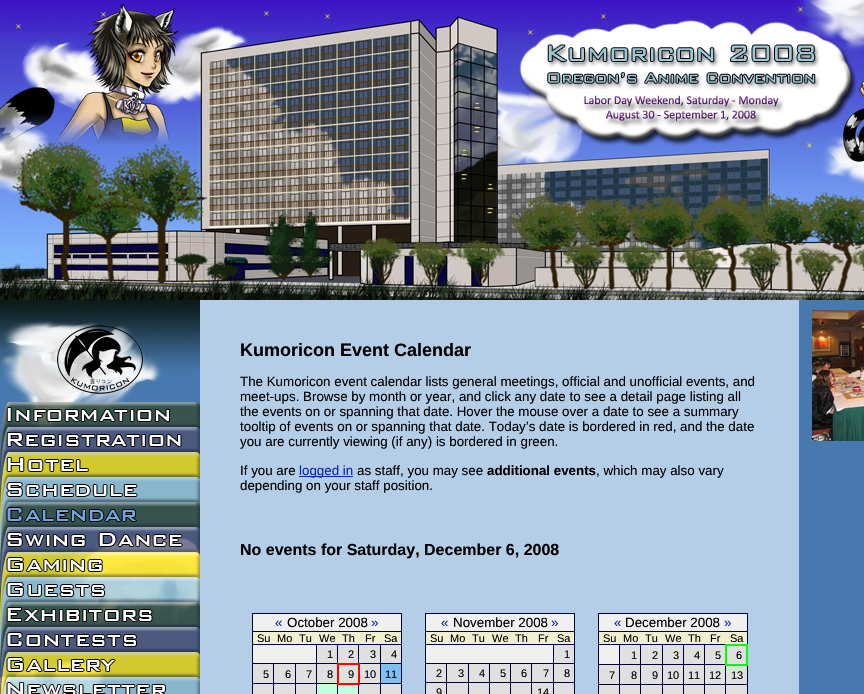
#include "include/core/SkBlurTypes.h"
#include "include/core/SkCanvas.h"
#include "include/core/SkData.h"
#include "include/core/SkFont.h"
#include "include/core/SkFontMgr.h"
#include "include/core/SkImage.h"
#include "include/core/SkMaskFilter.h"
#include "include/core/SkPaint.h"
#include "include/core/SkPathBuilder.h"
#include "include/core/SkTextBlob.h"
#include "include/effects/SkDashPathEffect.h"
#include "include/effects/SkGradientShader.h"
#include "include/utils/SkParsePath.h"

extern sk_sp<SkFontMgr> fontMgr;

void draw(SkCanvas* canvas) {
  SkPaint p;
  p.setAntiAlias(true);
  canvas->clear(SkColorSetRGB(181, 206, 232));
  p.setColor(SkColorSetRGB(71, 121, 174));
  canvas->drawRect(SkRect::MakeLTRB(799, 300, 864, 694), p);
  canvas->drawImageRect(SkImages::DeferredFromEncodedData(SkData::MakeFromFileName("images/1.png")), SkRect::MakeLTRB(0, 0, 864, 300), SkSamplingOptions());
  canvas->drawImageRect(SkImages::DeferredFromEncodedData(SkData::MakeFromFileName("images/3.png")), SkRect::MakeLTRB(15, 6, 858, 148), SkSamplingOptions());
  canvas->drawImageRect(SkImages::DeferredFromEncodedData(SkData::MakeFromFileName("images/2.png")), SkRect::MakeLTRB(0, 3, 180, 144), SkSamplingOptions());
  canvas->drawImageRect(SkImages::DeferredFromEncodedData(SkData::MakeFromFileName("images/4.png")), SkRect::MakeLTRB(843, 81, 864, 162), SkSamplingOptions());
  canvas->drawImageRect(SkImages::DeferredFromEncodedData(SkData::MakeFromFileName("images/5.png")), SkRect::MakeLTRB(0, 300, 200, 694), SkSamplingOptions());
  canvas->drawImageRect(SkImages::DeferredFromEncodedData(SkData::MakeFromFileName("images/6.png")), SkRect::MakeLTRB(57, 325, 143, 394), SkSamplingOptions());
  canvas->drawImageRect(SkImages::DeferredFromEncodedData(SkData::MakeFromFileName("images/7.png")), SkRect::MakeLTRB(0, 402, 200, 500), SkSamplingOptions());
  canvas->drawImageRect(SkImages::DeferredFromEncodedData(SkData::MakeFromFileName("images/8.png")), SkRect::MakeLTRB(6, 407, 170, 422), SkSamplingOptions());
  canvas->drawImageRect(SkImages::DeferredFromEncodedData(SkData::MakeFromFileName("images/9.png")), SkRect::MakeLTRB(0, 427, 200, 525), SkSamplingOptions());
  canvas->drawImageRect(SkImages::DeferredFromEncodedData(SkData::MakeFromFileName("images/10.png")), SkRect::MakeLTRB(6, 432, 182, 447), SkSamplingOptions());
  canvas->drawImageRect(SkImages::DeferredFromEncodedData(SkData::MakeFromFileName("images/11.png")), SkRect::MakeLTRB(0, 452, 200, 550), SkSamplingOptions());
  canvas->drawImageRect(SkImages::DeferredFromEncodedData(SkData::MakeFromFileName("images/12.png")), SkRect::MakeLTRB(6, 457, 89, 472), SkSamplingOptions());
  canvas->drawImageRect(SkImages::DeferredFromEncodedData(SkData::MakeFromFileName("images/13.png")), SkRect::MakeLTRB(0, 477, 200, 575), SkSamplingOptions());
  canvas->drawImageRect(SkImages::DeferredFromEncodedData(SkData::MakeFromFileName("images/14.png")), SkRect::MakeLTRB(6, 482, 138, 497), SkSamplingOptions());
  canvas->drawImageRect(SkImages::DeferredFromEncodedData(SkData::MakeFromFileName("images/15.png")), SkRect::MakeLTRB(0, 502, 200, 600), SkSamplingOptions());
  canvas->drawImageRect(SkImages::DeferredFromEncodedData(SkData::MakeFromFileName("images/16.png")), SkRect::MakeLTRB(6, 507, 138, 522), SkSamplingOptions());
  canvas->drawImageRect(SkImages::DeferredFromEncodedData(SkData::MakeFromFileName("images/17.png")), SkRect::MakeLTRB(0, 527, 200, 625), SkSamplingOptions());
  canvas->drawImageRect(SkImages::DeferredFromEncodedData(SkData::MakeFromFileName("images/18.png")), SkRect::MakeLTRB(6, 532, 183, 547), SkSamplingOptions());
  canvas->drawImageRect(SkImages::DeferredFromEncodedData(SkData::MakeFromFileName("images/19.png")), SkRect::MakeLTRB(0, 552, 200, 650), SkSamplingOptions());
  canvas->drawImageRect(SkImages::DeferredFromEncodedData(SkData::MakeFromFileName("images/20.png")), SkRect::MakeLTRB(6, 557, 103, 572), SkSamplingOptions());
  canvas->drawImageRect(SkImages::DeferredFromEncodedData(SkData::MakeFromFileName("images/21.png")), SkRect::MakeLTRB(0, 577, 200, 675), SkSamplingOptions());
  canvas->drawImageRect(SkImages::DeferredFromEncodedData(SkData::MakeFromFileName("images/22.png")), SkRect::MakeLTRB(6, 582, 105, 597), SkSamplingOptions());
  canvas->drawImageRect(SkImages::DeferredFromEncodedData(SkData::MakeFromFileName("images/23.png")), SkRect::MakeLTRB(0, 602, 200, 694), SkSamplingOptions());
  canvas->drawImageRect(SkImages::DeferredFromEncodedData(SkData::MakeFromFileName("images/24.png")), SkRect::MakeLTRB(6, 607, 153, 622), SkSamplingOptions());
  canvas->drawImageRect(SkImages::DeferredFromEncodedData(SkData::MakeFromFileName("images/25.png")), SkRect::MakeLTRB(0, 627, 200, 694), SkSamplingOptions());
  canvas->drawImageRect(SkImages::DeferredFromEncodedData(SkData::MakeFromFileName("images/26.png")), SkRect::MakeLTRB(6, 632, 137, 647), SkSamplingOptions());
  canvas->drawImageRect(SkImages::DeferredFromEncodedData(SkData::MakeFromFileName("images/27.png")), SkRect::MakeLTRB(0, 652, 200, 694), SkSamplingOptions());
  canvas->drawImageRect(SkImages::DeferredFromEncodedData(SkData::MakeFromFileName("images/28.png")), SkRect::MakeLTRB(6, 657, 116, 672), SkSamplingOptions());
  canvas->drawImageRect(SkImages::DeferredFromEncodedData(SkData::MakeFromFileName("images/29.png")), SkRect::MakeLTRB(3, 677, 200, 694), SkSamplingOptions());
  canvas->drawImageRect(SkImages::DeferredFromEncodedData(SkData::MakeFromFileName("images/30.png")), SkRect::MakeLTRB(6, 682, 166, 694), SkSamplingOptions());
  p.setColor(SkColorSetRGB(9, 40, 179));
  canvas->drawRect(SkRect::MakeLTRB(299, 476, 353, 477), p);
  p.setColor(SkColorSetRGB(240, 240, 240));
  canvas->drawRect(SkRect::MakeLTRB(253, 614, 401, 631), p);
  p.setColor(SkColorSetRGB(0, 0, 64));
  canvas->drawRect(SkRect::MakeLTRB(252, 613, 402, 614), p);
  canvas->drawRect(SkRect::MakeLTRB(380, 644, 402, 645), p);
  canvas->drawRect(SkRect::MakeLTRB(380, 663, 402, 664), p);
  canvas->drawRect(SkRect::MakeLTRB(380, 683, 402, 684), p);
  canvas->drawRect(SkRect::MakeLTRB(401, 683, 402, 694), p);
  canvas->drawRect(SkRect::MakeLTRB(401, 663, 402, 684), p);
  canvas->drawRect(SkRect::MakeLTRB(401, 631, 402, 664), p);
  canvas->drawRect(SkRect::MakeLTRB(401, 613, 402, 632), p);
  canvas->drawRect(SkRect::MakeLTRB(380, 683, 381, 694), p);
  canvas->drawRect(SkRect::MakeLTRB(358, 683, 381, 684), p);
  canvas->drawRect(SkRect::MakeLTRB(380, 663, 381, 684), p);
  canvas->drawRect(SkRect::MakeLTRB(358, 663, 381, 664), p);
  canvas->drawRect(SkRect::MakeLTRB(380, 644, 381, 664), p);
  canvas->drawRect(SkRect::MakeLTRB(358, 644, 381, 645), p);
  canvas->drawRect(SkRect::MakeLTRB(358, 644, 359, 664), p);
  canvas->drawRect(SkRect::MakeLTRB(337, 644, 359, 645), p);
  canvas->drawRect(SkRect::MakeLTRB(316, 663, 338, 664), p);
  canvas->drawRect(SkRect::MakeLTRB(337, 644, 338, 664), p);
  canvas->drawRect(SkRect::MakeLTRB(316, 644, 338, 645), p);
  canvas->drawRect(SkRect::MakeLTRB(337, 683, 338, 694), p);
  canvas->drawRect(SkRect::MakeLTRB(316, 683, 338, 684), p);
  canvas->drawRect(SkRect::MakeLTRB(316, 683, 317, 694), p);
  canvas->drawRect(SkRect::MakeLTRB(295, 683, 317, 684), p);
  canvas->drawRect(SkRect::MakeLTRB(316, 663, 317, 684), p);
  canvas->drawRect(SkRect::MakeLTRB(295, 663, 317, 664), p);
  canvas->drawRect(SkRect::MakeLTRB(316, 644, 317, 664), p);
  canvas->drawRect(SkRect::MakeLTRB(252, 644, 317, 645), p);
  canvas->drawRect(SkRect::MakeLTRB(295, 683, 296, 694), p);
  canvas->drawRect(SkRect::MakeLTRB(273, 683, 296, 684), p);
  canvas->drawRect(SkRect::MakeLTRB(295, 663, 296, 684), p);
  canvas->drawRect(SkRect::MakeLTRB(273, 663, 296, 664), p);
  canvas->drawRect(SkRect::MakeLTRB(273, 683, 274, 694), p);
  canvas->drawRect(SkRect::MakeLTRB(252, 683, 274, 684), p);
  canvas->drawRect(SkRect::MakeLTRB(273, 663, 274, 684), p);
  canvas->drawRect(SkRect::MakeLTRB(252, 663, 274, 664), p);
  canvas->drawRect(SkRect::MakeLTRB(252, 683, 253, 694), p);
  canvas->drawRect(SkRect::MakeLTRB(252, 663, 253, 684), p);
  canvas->drawRect(SkRect::MakeLTRB(252, 631, 253, 664), p);
  canvas->drawRect(SkRect::MakeLTRB(252, 631, 402, 632), p);
  canvas->drawRect(SkRect::MakeLTRB(252, 613, 253, 632), p);
  p.setColor(SkColorSetRGB(240, 240, 208));
  canvas->drawRect(SkRect::MakeLTRB(253, 632, 401, 644), p);
  p.setColor(SkColorSetRGB(240, 240, 240));
  canvas->drawRect(SkRect::MakeLTRB(253, 645, 316, 663), p);
  p.setColor(SkColorSetRGB(224, 224, 224));
  canvas->drawRect(SkRect::MakeLTRB(317, 645, 337, 663), p);
  canvas->drawRect(SkRect::MakeLTRB(338, 645, 358, 663), p);
  canvas->drawRect(SkRect::MakeLTRB(359, 645, 380, 663), p);
  canvas->drawRect(SkRect::MakeLTRB(381, 645, 401, 663), p);
  canvas->drawRect(SkRect::MakeLTRB(253, 664, 273, 683), p);
  canvas->drawRect(SkRect::MakeLTRB(274, 664, 295, 683), p);
  canvas->drawRect(SkRect::MakeLTRB(296, 664, 316, 683), p);
  canvas->drawRect(SkRect::MakeLTRB(317, 664, 337, 683), p);
  canvas->drawRect(SkRect::MakeLTRB(339, 665, 358, 683), p);
  p.setColor(SkColorSetRGB(255, 0, 0));
  canvas->drawRect(SkRect::MakeLTRB(337, 663, 360, 665), p);
  p.setColor(SkColorSetRGB(224, 224, 224));
  canvas->drawRect(SkRect::MakeLTRB(359, 684, 380, 694), p);
  p.setColor(SkColorSetRGB(0, 0, 64));
  canvas->drawRect(SkRect::MakeLTRB(358, 683, 359, 694), p);
  p.setColor(SkColorSetRGB(255, 0, 0));
  canvas->drawRect(SkRect::MakeLTRB(358, 663, 360, 685), p);
  canvas->drawRect(SkRect::MakeLTRB(337, 683, 360, 685), p);
  canvas->drawRect(SkRect::MakeLTRB(337, 663, 339, 685), p);
  p.setColor(SkColorSetRGB(224, 224, 224));
  canvas->drawRect(SkRect::MakeLTRB(360, 664, 380, 683), p);
  p.setColor(SkColorSetRGB(128, 192, 240));
  canvas->drawRect(SkRect::MakeLTRB(381, 664, 401, 683), p);
  p.setColor(SkColorSetRGB(224, 224, 224));
  canvas->drawRect(SkRect::MakeLTRB(253, 684, 273, 694), p);
  canvas->drawRect(SkRect::MakeLTRB(274, 684, 295, 694), p);
  canvas->drawRect(SkRect::MakeLTRB(296, 684, 316, 694), p);
  p.setColor(SkColorSetRGB(192, 255, 224));
  canvas->drawRect(SkRect::MakeLTRB(317, 684, 337, 694), p);
  canvas->drawRect(SkRect::MakeLTRB(338, 685, 358, 694), p);
  p.setColor(SkColorSetRGB(224, 224, 224));
  canvas->drawRect(SkRect::MakeLTRB(381, 684, 401, 694), p);
  p.setColor(SkColorSetRGB(240, 240, 240));
  canvas->drawRect(SkRect::MakeLTRB(426, 614, 574, 631), p);
  p.setColor(SkColorSetRGB(0, 0, 64));
  canvas->drawRect(SkRect::MakeLTRB(425, 613, 575, 614), p);
  canvas->drawRect(SkRect::MakeLTRB(553, 644, 575, 645), p);
  canvas->drawRect(SkRect::MakeLTRB(553, 663, 575, 664), p);
  canvas->drawRect(SkRect::MakeLTRB(553, 682, 575, 683), p);
  canvas->drawRect(SkRect::MakeLTRB(574, 682, 575, 694), p);
  canvas->drawRect(SkRect::MakeLTRB(574, 663, 575, 683), p);
  canvas->drawRect(SkRect::MakeLTRB(574, 631, 575, 664), p);
  canvas->drawRect(SkRect::MakeLTRB(574, 613, 575, 632), p);
  canvas->drawRect(SkRect::MakeLTRB(553, 682, 554, 694), p);
  canvas->drawRect(SkRect::MakeLTRB(531, 682, 554, 683), p);
  canvas->drawRect(SkRect::MakeLTRB(553, 663, 554, 683), p);
  canvas->drawRect(SkRect::MakeLTRB(531, 663, 554, 664), p);
  canvas->drawRect(SkRect::MakeLTRB(553, 644, 554, 664), p);
  canvas->drawRect(SkRect::MakeLTRB(425, 644, 554, 645), p);
  canvas->drawRect(SkRect::MakeLTRB(531, 682, 532, 694), p);
  canvas->drawRect(SkRect::MakeLTRB(510, 682, 532, 683), p);
  canvas->drawRect(SkRect::MakeLTRB(531, 663, 532, 683), p);
  canvas->drawRect(SkRect::MakeLTRB(510, 663, 532, 664), p);
  canvas->drawRect(SkRect::MakeLTRB(510, 682, 511, 694), p);
  canvas->drawRect(SkRect::MakeLTRB(489, 682, 511, 683), p);
  canvas->drawRect(SkRect::MakeLTRB(510, 663, 511, 683), p);
  canvas->drawRect(SkRect::MakeLTRB(489, 663, 511, 664), p);
  canvas->drawRect(SkRect::MakeLTRB(489, 682, 490, 694), p);
  canvas->drawRect(SkRect::MakeLTRB(468, 682, 490, 683), p);
  canvas->drawRect(SkRect::MakeLTRB(489, 663, 490, 683), p);
  canvas->drawRect(SkRect::MakeLTRB(468, 663, 490, 664), p);
  canvas->drawRect(SkRect::MakeLTRB(468, 682, 469, 694), p);
  canvas->drawRect(SkRect::MakeLTRB(446, 682, 469, 683), p);
  canvas->drawRect(SkRect::MakeLTRB(468, 663, 469, 683), p);
  canvas->drawRect(SkRect::MakeLTRB(446, 663, 469, 664), p);
  canvas->drawRect(SkRect::MakeLTRB(446, 682, 447, 694), p);
  canvas->drawRect(SkRect::MakeLTRB(425, 682, 447, 683), p);
  canvas->drawRect(SkRect::MakeLTRB(446, 663, 447, 683), p);
  canvas->drawRect(SkRect::MakeLTRB(425, 663, 447, 664), p);
  canvas->drawRect(SkRect::MakeLTRB(425, 682, 426, 694), p);
  canvas->drawRect(SkRect::MakeLTRB(425, 663, 426, 683), p);
  canvas->drawRect(SkRect::MakeLTRB(425, 631, 426, 664), p);
  canvas->drawRect(SkRect::MakeLTRB(425, 631, 575, 632), p);
  canvas->drawRect(SkRect::MakeLTRB(425, 613, 426, 632), p);
  p.setColor(SkColorSetRGB(240, 240, 208));
  canvas->drawRect(SkRect::MakeLTRB(426, 632, 574, 644), p);
  p.setColor(SkColorSetRGB(240, 240, 240));
  canvas->drawRect(SkRect::MakeLTRB(426, 645, 553, 663), p);
  p.setColor(SkColorSetRGB(224, 224, 224));
  canvas->drawRect(SkRect::MakeLTRB(554, 645, 574, 663), p);
  canvas->drawRect(SkRect::MakeLTRB(426, 664, 446, 682), p);
  canvas->drawRect(SkRect::MakeLTRB(447, 664, 468, 682), p);
  canvas->drawRect(SkRect::MakeLTRB(469, 664, 489, 682), p);
  canvas->drawRect(SkRect::MakeLTRB(490, 664, 510, 682), p);
  canvas->drawRect(SkRect::MakeLTRB(511, 664, 531, 682), p);
  canvas->drawRect(SkRect::MakeLTRB(532, 664, 553, 682), p);
  canvas->drawRect(SkRect::MakeLTRB(554, 664, 574, 682), p);
  canvas->drawRect(SkRect::MakeLTRB(426, 683, 446, 694), p);
  canvas->drawRect(SkRect::MakeLTRB(447, 683, 468, 694), p);
  canvas->drawRect(SkRect::MakeLTRB(469, 683, 489, 694), p);
  canvas->drawRect(SkRect::MakeLTRB(490, 683, 510, 694), p);
  canvas->drawRect(SkRect::MakeLTRB(511, 683, 531, 694), p);
  canvas->drawRect(SkRect::MakeLTRB(532, 683, 553, 694), p);
  canvas->drawRect(SkRect::MakeLTRB(554, 683, 574, 694), p);
  p.setColor(SkColorSetRGB(240, 240, 240));
  canvas->drawRect(SkRect::MakeLTRB(599, 614, 747, 631), p);
  p.setColor(SkColorSetRGB(0, 0, 64));
  canvas->drawRect(SkRect::MakeLTRB(598, 613, 748, 614), p);
  canvas->drawRect(SkRect::MakeLTRB(747, 631, 748, 645), p);
  canvas->drawRect(SkRect::MakeLTRB(747, 613, 748, 632), p);
  canvas->drawRect(SkRect::MakeLTRB(704, 644, 726, 645), p);
  canvas->drawRect(SkRect::MakeLTRB(725, 684, 748, 685), p);
  canvas->drawRect(SkRect::MakeLTRB(725, 684, 726, 694), p);
  canvas->drawRect(SkRect::MakeLTRB(704, 684, 726, 685), p);
  canvas->drawRect(SkRect::MakeLTRB(725, 664, 726, 685), p);
  canvas->drawRect(SkRect::MakeLTRB(704, 664, 726, 665), p);
  canvas->drawRect(SkRect::MakeLTRB(704, 684, 705, 694), p);
  canvas->drawRect(SkRect::MakeLTRB(683, 684, 705, 685), p);
  canvas->drawRect(SkRect::MakeLTRB(704, 664, 705, 685), p);
  canvas->drawRect(SkRect::MakeLTRB(683, 664, 705, 665), p);
  canvas->drawRect(SkRect::MakeLTRB(704, 644, 705, 665), p);
  canvas->drawRect(SkRect::MakeLTRB(683, 644, 705, 645), p);
  canvas->drawRect(SkRect::MakeLTRB(683, 684, 684, 694), p);
  canvas->drawRect(SkRect::MakeLTRB(662, 684, 684, 685), p);
  canvas->drawRect(SkRect::MakeLTRB(683, 664, 684, 685), p);
  canvas->drawRect(SkRect::MakeLTRB(662, 664, 684, 665), p);
  canvas->drawRect(SkRect::MakeLTRB(683, 644, 684, 665), p);
  canvas->drawRect(SkRect::MakeLTRB(662, 644, 684, 645), p);
  canvas->drawRect(SkRect::MakeLTRB(662, 684, 663, 694), p);
  canvas->drawRect(SkRect::MakeLTRB(640, 684, 663, 685), p);
  canvas->drawRect(SkRect::MakeLTRB(662, 664, 663, 685), p);
  canvas->drawRect(SkRect::MakeLTRB(640, 664, 663, 665), p);
  canvas->drawRect(SkRect::MakeLTRB(662, 644, 663, 665), p);
  canvas->drawRect(SkRect::MakeLTRB(640, 644, 663, 645), p);
  canvas->drawRect(SkRect::MakeLTRB(640, 684, 641, 694), p);
  canvas->drawRect(SkRect::MakeLTRB(619, 684, 641, 685), p);
  canvas->drawRect(SkRect::MakeLTRB(640, 664, 641, 685), p);
  canvas->drawRect(SkRect::MakeLTRB(619, 664, 641, 665), p);
  canvas->drawRect(SkRect::MakeLTRB(640, 644, 641, 665), p);
  canvas->drawRect(SkRect::MakeLTRB(619, 644, 641, 645), p);
  canvas->drawRect(SkRect::MakeLTRB(619, 684, 620, 694), p);
  canvas->drawRect(SkRect::MakeLTRB(598, 684, 620, 685), p);
  canvas->drawRect(SkRect::MakeLTRB(619, 664, 620, 685), p);
  canvas->drawRect(SkRect::MakeLTRB(598, 664, 620, 665), p);
  canvas->drawRect(SkRect::MakeLTRB(619, 644, 620, 665), p);
  canvas->drawRect(SkRect::MakeLTRB(598, 644, 620, 645), p);
  canvas->drawRect(SkRect::MakeLTRB(598, 684, 599, 694), p);
  canvas->drawRect(SkRect::MakeLTRB(598, 664, 599, 685), p);
  canvas->drawRect(SkRect::MakeLTRB(598, 631, 599, 665), p);
  canvas->drawRect(SkRect::MakeLTRB(598, 631, 748, 632), p);
  canvas->drawRect(SkRect::MakeLTRB(598, 613, 599, 632), p);
  p.setColor(SkColorSetRGB(240, 240, 208));
  canvas->drawRect(SkRect::MakeLTRB(599, 632, 747, 644), p);
  p.setColor(SkColorSetRGB(240, 240, 240));
  canvas->drawRect(SkRect::MakeLTRB(599, 645, 619, 664), p);
  p.setColor(SkColorSetRGB(224, 224, 224));
  canvas->drawRect(SkRect::MakeLTRB(620, 645, 640, 664), p);
  canvas->drawRect(SkRect::MakeLTRB(641, 645, 662, 664), p);
  canvas->drawRect(SkRect::MakeLTRB(663, 645, 683, 664), p);
  canvas->drawRect(SkRect::MakeLTRB(684, 645, 704, 664), p);
  canvas->drawRect(SkRect::MakeLTRB(705, 645, 725, 664), p);
  canvas->drawRect(SkRect::MakeLTRB(727, 646, 746, 664), p);
  p.setColor(SkColorSetRGB(0, 255, 0));
  canvas->drawRect(SkRect::MakeLTRB(725, 644, 748, 646), p);
  p.setColor(SkColorSetRGB(0, 0, 64));
  canvas->drawRect(SkRect::MakeLTRB(747, 664, 748, 694), p);
  p.setColor(SkColorSetRGB(0, 255, 0));
  canvas->drawRect(SkRect::MakeLTRB(746, 644, 748, 666), p);
  canvas->drawRect(SkRect::MakeLTRB(725, 664, 748, 666), p);
  canvas->drawRect(SkRect::MakeLTRB(725, 644, 727, 666), p);
  p.setColor(SkColorSetRGB(224, 224, 224));
  canvas->drawRect(SkRect::MakeLTRB(599, 685, 619, 694), p);
  canvas->drawRect(SkRect::MakeLTRB(620, 685, 640, 694), p);
  canvas->drawRect(SkRect::MakeLTRB(641, 685, 662, 694), p);
  canvas->drawRect(SkRect::MakeLTRB(663, 685, 683, 694), p);
  canvas->drawRect(SkRect::MakeLTRB(684, 685, 704, 694), p);
  canvas->drawRect(SkRect::MakeLTRB(705, 685, 725, 694), p);
  canvas->drawRect(SkRect::MakeLTRB(726, 685, 747, 694), p);
  canvas->drawRect(SkRect::MakeLTRB(599, 665, 619, 684), p);
  canvas->drawRect(SkRect::MakeLTRB(620, 665, 640, 684), p);
  canvas->drawRect(SkRect::MakeLTRB(641, 665, 662, 684), p);
  canvas->drawRect(SkRect::MakeLTRB(663, 665, 683, 684), p);
  canvas->drawRect(SkRect::MakeLTRB(684, 665, 704, 684), p);
  canvas->drawRect(SkRect::MakeLTRB(705, 665, 725, 684), p);
  canvas->drawRect(SkRect::MakeLTRB(726, 666, 747, 684), p);
  canvas->drawImageRect(SkImages::DeferredFromEncodedData(SkData::MakeFromFileName("images/31.png")), SkRect::MakeLTRB(812, 310, 864, 441), SkSamplingOptions());
  SkFont font1(fontMgr->matchFamilyStyle("Liberation Sans", SkFontStyle::Bold()), 18);
  font1.setSubpixel(true);
  p.setColor(SK_ColorBLACK);
  canvas->drawString("Kumoricon Event Calendar", 240, 356, font1, p);
  SkFont font2(fontMgr->matchFamilyStyle("Liberation Sans", SkFontStyle::Normal()), 13.35f);
  font2.setSubpixel(true);
  canvas->drawString("The Kumoricon event calendar lists general meetings, official and unofficial events, and", 240, 386, font2, p);
  canvas->drawString("meet-ups. Browse by month or year, and click any date to see a detail page listing all", 240, 401, font2, p);
  canvas->drawString("the events on or spanning that date. Hover the mouse over a date to see a summary", 240, 416, font2, p);
  canvas->drawString("tooltip of events on or spanning that date. Today’s date is bordered in red, and the date", 240, 431, font2, p);
  canvas->drawString("you are currently viewing (if any) is bordered in green.", 240, 446, font2, p);
  canvas->drawString("If you are", 240, 475, font2, p);
  p.setColor(SkColorSetRGB(9, 40, 179));
  canvas->drawString("logged in", 299, 475, font2, p);
  p.setColor(SK_ColorBLACK);
  canvas->drawString("as staff, you may see", 357, 475, font2, p);
  SkFont font3(fontMgr->matchFamilyStyle("Liberation Sans", SkFontStyle::Bold()), 13.35f);
  font3.setSubpixel(true);
  canvas->drawString("additional events", 487, 475, font3, p);
  canvas->drawString(", which may also vary", 596, 475, font2, p);
  canvas->drawString("depending on your staff position.", 240, 490, font2, p);
  SkFont font4(fontMgr->matchFamilyStyle("Liberation Sans", SkFontStyle::Bold()), 16);
  font4.setSubpixel(true);
  canvas->drawString("No events for Saturday, December 6, 2008", 240, 555, font4, p);
  p.setColor(SkColorSetRGB(9, 40, 179));
  canvas->drawString("«", 275, 627, font2, p);
  p.setColor(SK_ColorBLACK);
  canvas->drawString("October 2008", 287, 627, font2, p);
  p.setColor(SkColorSetRGB(9, 40, 179));
  canvas->drawString("»", 371, 627, font2, p);
  SkFont font5(fontMgr->matchFamilyStyle("Liberation Sans", SkFontStyle::Normal()), 11);
  font5.setSubpixel(true);
  p.setColor(SK_ColorBLACK);
  canvas->drawString("Su", 257, 642, font5, p);
  canvas->drawString("Mo", 277, 642, font5, p);
  canvas->drawString("Tu", 299, 642, font5, p);
  canvas->drawString("We", 319, 642, font5, p);
  canvas->drawString("Th", 342, 642, font5, p);
  canvas->drawString("Fr", 365, 642, font5, p);
  canvas->drawString("Sa", 384, 642, font5, p);
  canvas->drawString("1", 327, 658, font5, p);
  canvas->drawString("2", 348, 658, font5, p);
  canvas->drawString("3", 370, 658, font5, p);
  canvas->drawString("4", 391, 658, font5, p);
  canvas->drawString("5", 263, 678, font5, p);
  canvas->drawString("6", 285, 678, font5, p);
  canvas->drawString("7", 306, 678, font5, p);
  canvas->drawString("8", 327, 678, font5, p);
  canvas->drawString("9", 348, 678, font5, p);
  canvas->drawString("10", 364, 678, font5, p);
  canvas->drawString("11", 385, 678, font5, p);
  p.setColor(SkColorSetRGB(9, 40, 179));
  canvas->drawString("«", 441, 627, font2, p);
  p.setColor(SK_ColorBLACK);
  canvas->drawString("November 2008", 453, 627, font2, p);
  p.setColor(SkColorSetRGB(9, 40, 179));
  canvas->drawString("»", 551, 627, font2, p);
  p.setColor(SK_ColorBLACK);
  canvas->drawString("Su", 430, 642, font5, p);
  canvas->drawString("Mo", 450, 642, font5, p);
  canvas->drawString("Tu", 472, 642, font5, p);
  canvas->drawString("We", 492, 642, font5, p);
  canvas->drawString("Th", 515, 642, font5, p);
  canvas->drawString("Fr", 538, 642, font5, p);
  canvas->drawString("Sa", 557, 642, font5, p);
  canvas->drawString("1", 564, 658, font5, p);
  canvas->drawString("2", 436, 677, font5, p);
  canvas->drawString("3", 458, 677, font5, p);
  canvas->drawString("4", 479, 677, font5, p);
  canvas->drawString("5", 500, 677, font5, p);
  canvas->drawString("6", 521, 677, font5, p);
  canvas->drawString("7", 543, 677, font5, p);
  canvas->drawString("8", 564, 677, font5, p);
  canvas->drawString("9", 436, 696, font5, p);
  canvas->drawString("14", 537, 696, font5, p);
  p.setColor(SkColorSetRGB(9, 40, 179));
  canvas->drawString("«", 614, 627, font2, p);
  p.setColor(SK_ColorBLACK);
  canvas->drawString("December 2008", 625, 627, font2, p);
  p.setColor(SkColorSetRGB(9, 40, 179));
  canvas->drawString("»", 724, 627, font2, p);
  p.setColor(SK_ColorBLACK);
  canvas->drawString("Su", 603, 642, font5, p);
  canvas->drawString("Mo", 623, 642, font5, p);
  canvas->drawString("Tu", 645, 642, font5, p);
  canvas->drawString("We", 665, 642, font5, p);
  canvas->drawString("Th", 688, 642, font5, p);
  canvas->drawString("Fr", 710, 642, font5, p);
  canvas->drawString("Sa", 730, 642, font5, p);
  canvas->drawString("1", 631, 659, font5, p);
  canvas->drawString("2", 652, 659, font5, p);
  canvas->drawString("3", 673, 659, font5, p);
  canvas->drawString("4", 694, 659, font5, p);
  canvas->drawString("5", 715, 659, font5, p);
  canvas->drawString("6", 736, 659, font5, p);
  canvas->drawString("7", 609, 679, font5, p);
  canvas->drawString("8", 631, 679, font5, p);
  canvas->drawString("9", 652, 679, font5, p);
  canvas->drawString("10", 667, 679, font5, p);
  canvas->drawString("11", 688, 679, font5, p);
  canvas->drawString("12", 709, 679, font5, p);
  canvas->drawString("13", 731, 679, font5, p);
}
